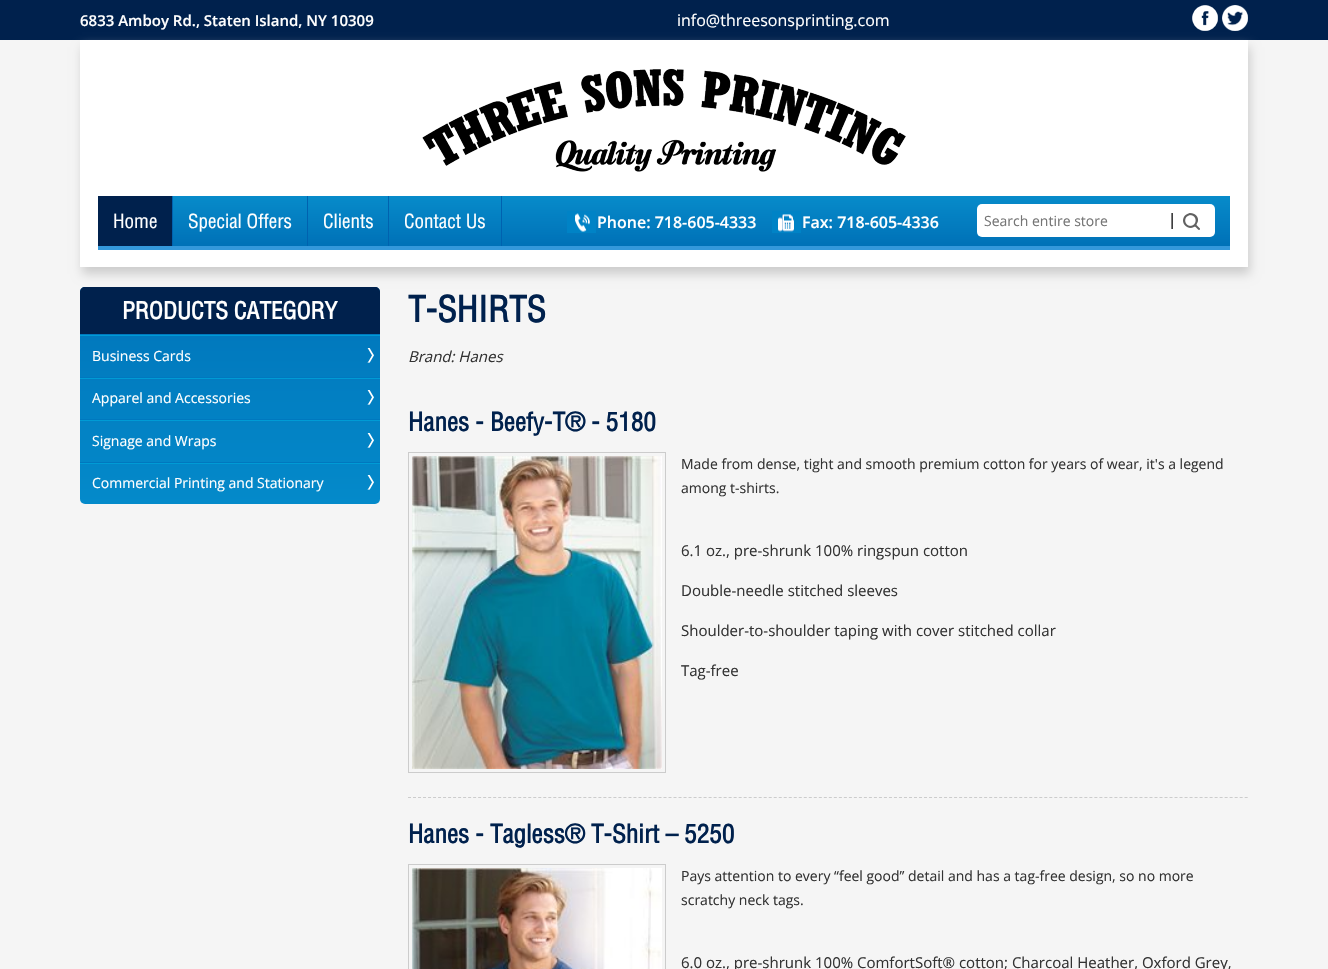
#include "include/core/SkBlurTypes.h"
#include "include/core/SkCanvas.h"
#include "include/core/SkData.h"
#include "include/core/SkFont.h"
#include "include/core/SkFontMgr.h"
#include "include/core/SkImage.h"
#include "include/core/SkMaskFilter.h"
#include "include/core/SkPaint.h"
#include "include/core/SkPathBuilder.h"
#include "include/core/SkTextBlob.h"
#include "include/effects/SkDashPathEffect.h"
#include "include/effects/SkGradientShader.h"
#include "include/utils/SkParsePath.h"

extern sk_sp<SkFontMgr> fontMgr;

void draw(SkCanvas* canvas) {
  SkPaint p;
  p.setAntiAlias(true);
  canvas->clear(SkColorSetRGB(245, 245, 245));
  p.setColor(SkColorSetRGB(0, 33, 77));
  canvas->drawRect(SkRect::MakeLTRB(0, 0, 1328, 40), p);
  canvas->drawImageRect(SkImages::DeferredFromEncodedData(SkData::MakeFromFileName("images/1.png")), SkRect::MakeLTRB(1192, 5, 1218, 31), SkSamplingOptions());
  canvas->drawImageRect(SkImages::DeferredFromEncodedData(SkData::MakeFromFileName("images/2.png")), SkRect::MakeLTRB(1222, 5, 1248, 31), SkSamplingOptions());
  p.setColor(SkColorSetRGB(204, 204, 204));
  p.setMaskFilter(SkMaskFilter::MakeBlur(kNormal_SkBlurStyle, 5));
  canvas->drawRect(SkRect::MakeLTRB(82, 47, 1250, 274), p);
  p.setMaskFilter(nullptr);
  p.setColor(SK_ColorWHITE);
  canvas->drawRect(SkRect::MakeLTRB(80, 40, 1248, 267), p);
  canvas->drawImageRect(SkImages::DeferredFromEncodedData(SkData::MakeFromFileName("images/3.png")), SkRect::MakeLTRB(422, 68, 906, 172), SkSamplingOptions());
  {
    const SkColor colors[] = {SkColorSetRGB(7, 139, 202), SkColorSetRGB(0, 113, 183)};
    const float stops[] = {0, 1};
    const SkPoint ends[] = {{664, 196}, {664, 246}};
    p.setShader(SkGradientShader::MakeLinear(ends, colors, stops, 2, SkTileMode::kClamp));
    p.setAlpha(255);
  }
  canvas->drawRect(SkRect::MakeLTRB(173, 196, 1230, 246), p);
  p.setShader(nullptr);
  p.setColor(SkColorSetRGB(52, 152, 219));
  canvas->drawRect(SkRect::MakeLTRB(98, 246, 1230, 250), p);
  p.setColor(SkColorSetRGB(0, 98, 175));
  canvas->drawRect(SkRect::MakeLTRB(172, 196, 173, 246), p);
  p.setColor(SkColorSetRGB(0, 33, 77));
  canvas->drawRect(SkRect::MakeLTRB(98, 196, 172, 246), p);
  p.setColor(SkColorSetRGB(0, 98, 175));
  canvas->drawRect(SkRect::MakeLTRB(307, 196, 308, 246), p);
  canvas->drawRect(SkRect::MakeLTRB(388, 196, 389, 246), p);
  canvas->drawRect(SkRect::MakeLTRB(501, 196, 502, 246), p);
  canvas->drawImageRect(SkImages::DeferredFromEncodedData(SkData::MakeFromFileName("images/4.png")), SkRect::MakeLTRB(567, 211, 596, 233), SkSamplingOptions());
  canvas->drawImageRect(SkImages::DeferredFromEncodedData(SkData::MakeFromFileName("images/5.png")), SkRect::MakeLTRB(772, 211, 801, 233), SkSamplingOptions());
  p.setColor(SK_ColorWHITE);
  canvas->drawRoundRect(SkRect::MakeLTRB(977, 204, 1215, 237), 5, 5, p);
  canvas->drawImageRect(SkImages::DeferredFromEncodedData(SkData::MakeFromFileName("images/6.png")), SkRect::MakeLTRB(1171, 213, 1200, 230), SkSamplingOptions());
  {
    const SkColor colors[] = {SkColorSetRGB(0, 116, 186), SkColorSetRGB(4, 138, 202)};
    const float stops[] = {0, 1};
    const SkPoint ends[] = {{230, 287}, {230, 504}};
    p.setShader(SkGradientShader::MakeLinear(ends, colors, stops, 2, SkTileMode::kClamp));
    p.setAlpha(255);
  }
  canvas->drawRoundRect(SkRect::MakeLTRB(80, 287, 380, 504), 5, 5, p);
  p.setShader(nullptr);
  p.setColor(SkColorSetRGB(0, 33, 77));
  canvas->drawPath(SkPathBuilder().moveTo(85, 287).lineTo(375, 287).cubicTo(378, 287, 380, 289, 380, 292).lineTo(380, 334).lineTo(80, 334).lineTo(80, 292).cubicTo(80, 289, 82, 287, 85, 287).close().detach(), p);
  p.setColor(SkColorSetRGB(0, 155, 213));
  canvas->drawRect(SkRect::MakeLTRB(80, 335, 380, 336), p);
  canvas->drawImageRect(SkImages::DeferredFromEncodedData(SkData::MakeFromFileName("images/7.png")), SkRect::MakeLTRB(367, 348, 374, 363), SkSamplingOptions());
  canvas->drawImageRect(SkImages::DeferredFromEncodedData(SkData::MakeFromFileName("images/8.png")), SkRect::MakeLTRB(80, 377, 380, 379), SkSamplingOptions());
  canvas->drawImageRect(SkImages::DeferredFromEncodedData(SkData::MakeFromFileName("images/9.png")), SkRect::MakeLTRB(367, 390, 374, 405), SkSamplingOptions());
  canvas->drawImageRect(SkImages::DeferredFromEncodedData(SkData::MakeFromFileName("images/8.png")), SkRect::MakeLTRB(80, 419, 380, 421), SkSamplingOptions());
  canvas->drawImageRect(SkImages::DeferredFromEncodedData(SkData::MakeFromFileName("images/10.png")), SkRect::MakeLTRB(367, 433, 374, 448), SkSamplingOptions());
  canvas->drawImageRect(SkImages::DeferredFromEncodedData(SkData::MakeFromFileName("images/8.png")), SkRect::MakeLTRB(80, 462, 380, 464), SkSamplingOptions());
  canvas->drawImageRect(SkImages::DeferredFromEncodedData(SkData::MakeFromFileName("images/11.png")), SkRect::MakeLTRB(367, 475, 374, 490), SkSamplingOptions());
  p.setStyle(SkPaint::kStroke_Style);
  p.setStrokeWidth(1);
  p.setColor(SkColorSetRGB(204, 204, 204));
  p.setPathEffect(SkDashPathEffect::Make({{3, 2.01f}}, 0));
  canvas->drawPath(SkPathBuilder().moveTo(408, 797.5f).lineTo(1248, 797.5f).detach(), p);
  p.setPathEffect(nullptr);
  canvas->drawRect(SkRect::MakeLTRB(408.5f, 452.5f, 665.5f, 772.5f), p);
  canvas->drawImageRect(SkImages::DeferredFromEncodedData(SkData::MakeFromFileName("images/12.png")), SkRect::MakeLTRB(412, 456, 662, 769), SkSamplingOptions());
  canvas->drawRect(SkRect::MakeLTRB(408.5f, 864.5f, 665.5f, 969.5f), p);
  canvas->drawImageRect(SkImages::DeferredFromEncodedData(SkData::MakeFromFileName("images/13.png")), SkRect::MakeLTRB(412, 868, 662, 969), SkSamplingOptions());
  SkFont font1(fontMgr->matchFamilyStyle("Open Sans", SkFontStyle(600, SkFontStyle::kNormal_Width, SkFontStyle::kUpright_Slant)), 15);
  font1.setSubpixel(true);
  p.setStyle(SkPaint::kFill_Style);
  p.setColor(SK_ColorWHITE);
  canvas->drawString("6833 Amboy Rd., Staten Island, NY 10309", 80, 26, font1, p);
  SkFont font2(fontMgr->matchFamilyStyle("Open Sans", SkFontStyle::Normal()), 16);
  font2.setSubpixel(true);
  canvas->drawString("info@threesonsprinting.com", 677, 26, font2, p);
  SkFont font3(fontMgr->matchFamilyStyle("Helvetica", SkFontStyle(500, SkFontStyle::kNormal_Width, SkFontStyle::kUpright_Slant)), 19);
  font3.setSubpixel(true);
  canvas->drawString("Home", 113, 228, font3, p);
  canvas->drawString("Special Offers", 188, 228, font3, p);
  canvas->drawString("Clients", 323, 228, font3, p);
  canvas->drawString("Contact Us", 404, 228, font3, p);
  SkFont font4(fontMgr->matchFamilyStyle("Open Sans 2", SkFontStyle(600, SkFontStyle::kNormal_Width, SkFontStyle::kUpright_Slant)), 16);
  font4.setSubpixel(true);
  canvas->drawString("Phone: 718-605-4333", 597, 228, font4, p);
  canvas->drawString("Fax: 718-605-4336", 802, 228, font4, p);
  SkFont font5(fontMgr->matchFamilyStyle("Open Sans", SkFontStyle::Normal()), 14);
  font5.setSubpixel(true);
  p.setColor(SkColorSetRGB(117, 117, 117));
  canvas->drawString("Search entire store", 984, 226, font5, p);
  SkFont font6(fontMgr->matchFamilyStyle("Helvetica", SkFontStyle::Bold()), 23);
  font6.setSubpixel(true);
  p.setColor(SK_ColorWHITE);
  canvas->drawString("PRODUCTS CATEGORY", 122, 319, font6, p);
  canvas->drawString("Business Cards", 92, 361, font5, p);
  canvas->drawString("Apparel and Accessories", 92, 403, font5, p);
  canvas->drawString("Signage and Wraps", 92, 446, font5, p);
  canvas->drawString("Commercial Printing and Stationary", 92, 488, font5, p);
  SkFont font7(fontMgr->matchFamilyStyle("Helvetica", SkFontStyle::Bold()), 35);
  font7.setSubpixel(true);
  p.setColor(SkColorSetRGB(0, 33, 77));
  canvas->drawString("T-SHIRTS", 408, 322, font7, p);
  SkFont font8(fontMgr->matchFamilyStyle("Open Sans", SkFontStyle::Italic()), 15);
  font8.setSubpixel(true);
  p.setColor(SkColorSetRGB(51, 51, 51));
  canvas->drawString("Brand: Hanes", 408, 362, font8, p);
  SkFont font9(fontMgr->matchFamilyStyle("Helvetica", SkFontStyle::Bold()), 25);
  font9.setSubpixel(true);
  p.setColor(SkColorSetRGB(0, 33, 77));
  canvas->drawString("Hanes - Beefy-T® - 5180", 408, 431, font9, p);
  p.setColor(SkColorSetRGB(51, 51, 51));
  canvas->drawString("Made from dense, tight and smooth premium cotton for years of wear, it's a legend", 681, 469, font5, p);
  canvas->drawString("among t-shirts.", 681, 493, font5, p);
  SkFont font10(fontMgr->matchFamilyStyle("Open Sans", SkFontStyle::Normal()), 15);
  font10.setSubpixel(true);
  canvas->drawString("6.1 oz., pre-shrunk 100% ringspun cotton", 681, 556, font10, p);
  canvas->drawString("Double-needle stitched sleeves", 681, 596, font10, p);
  canvas->drawString("Shoulder-to-shoulder taping with cover stitched collar", 681, 636, font10, p);
  canvas->drawString("Tag-free", 681, 676, font10, p);
  p.setColor(SkColorSetRGB(0, 33, 77));
  canvas->drawString("Hanes - Tagless® T-Shirt – 5250", 408, 843, font9, p);
  p.setColor(SkColorSetRGB(51, 51, 51));
  canvas->drawString("Pays attention to every “feel good” detail and has a tag-free design, so no more", 681, 881, font5, p);
  canvas->drawString("scratchy neck tags.", 681, 905, font5, p);
  canvas->drawString("6.0 oz., pre-shrunk 100% ComfortSoft® cotton; Charcoal Heather, Oxford Grey,", 681, 968, font10, p);
}
